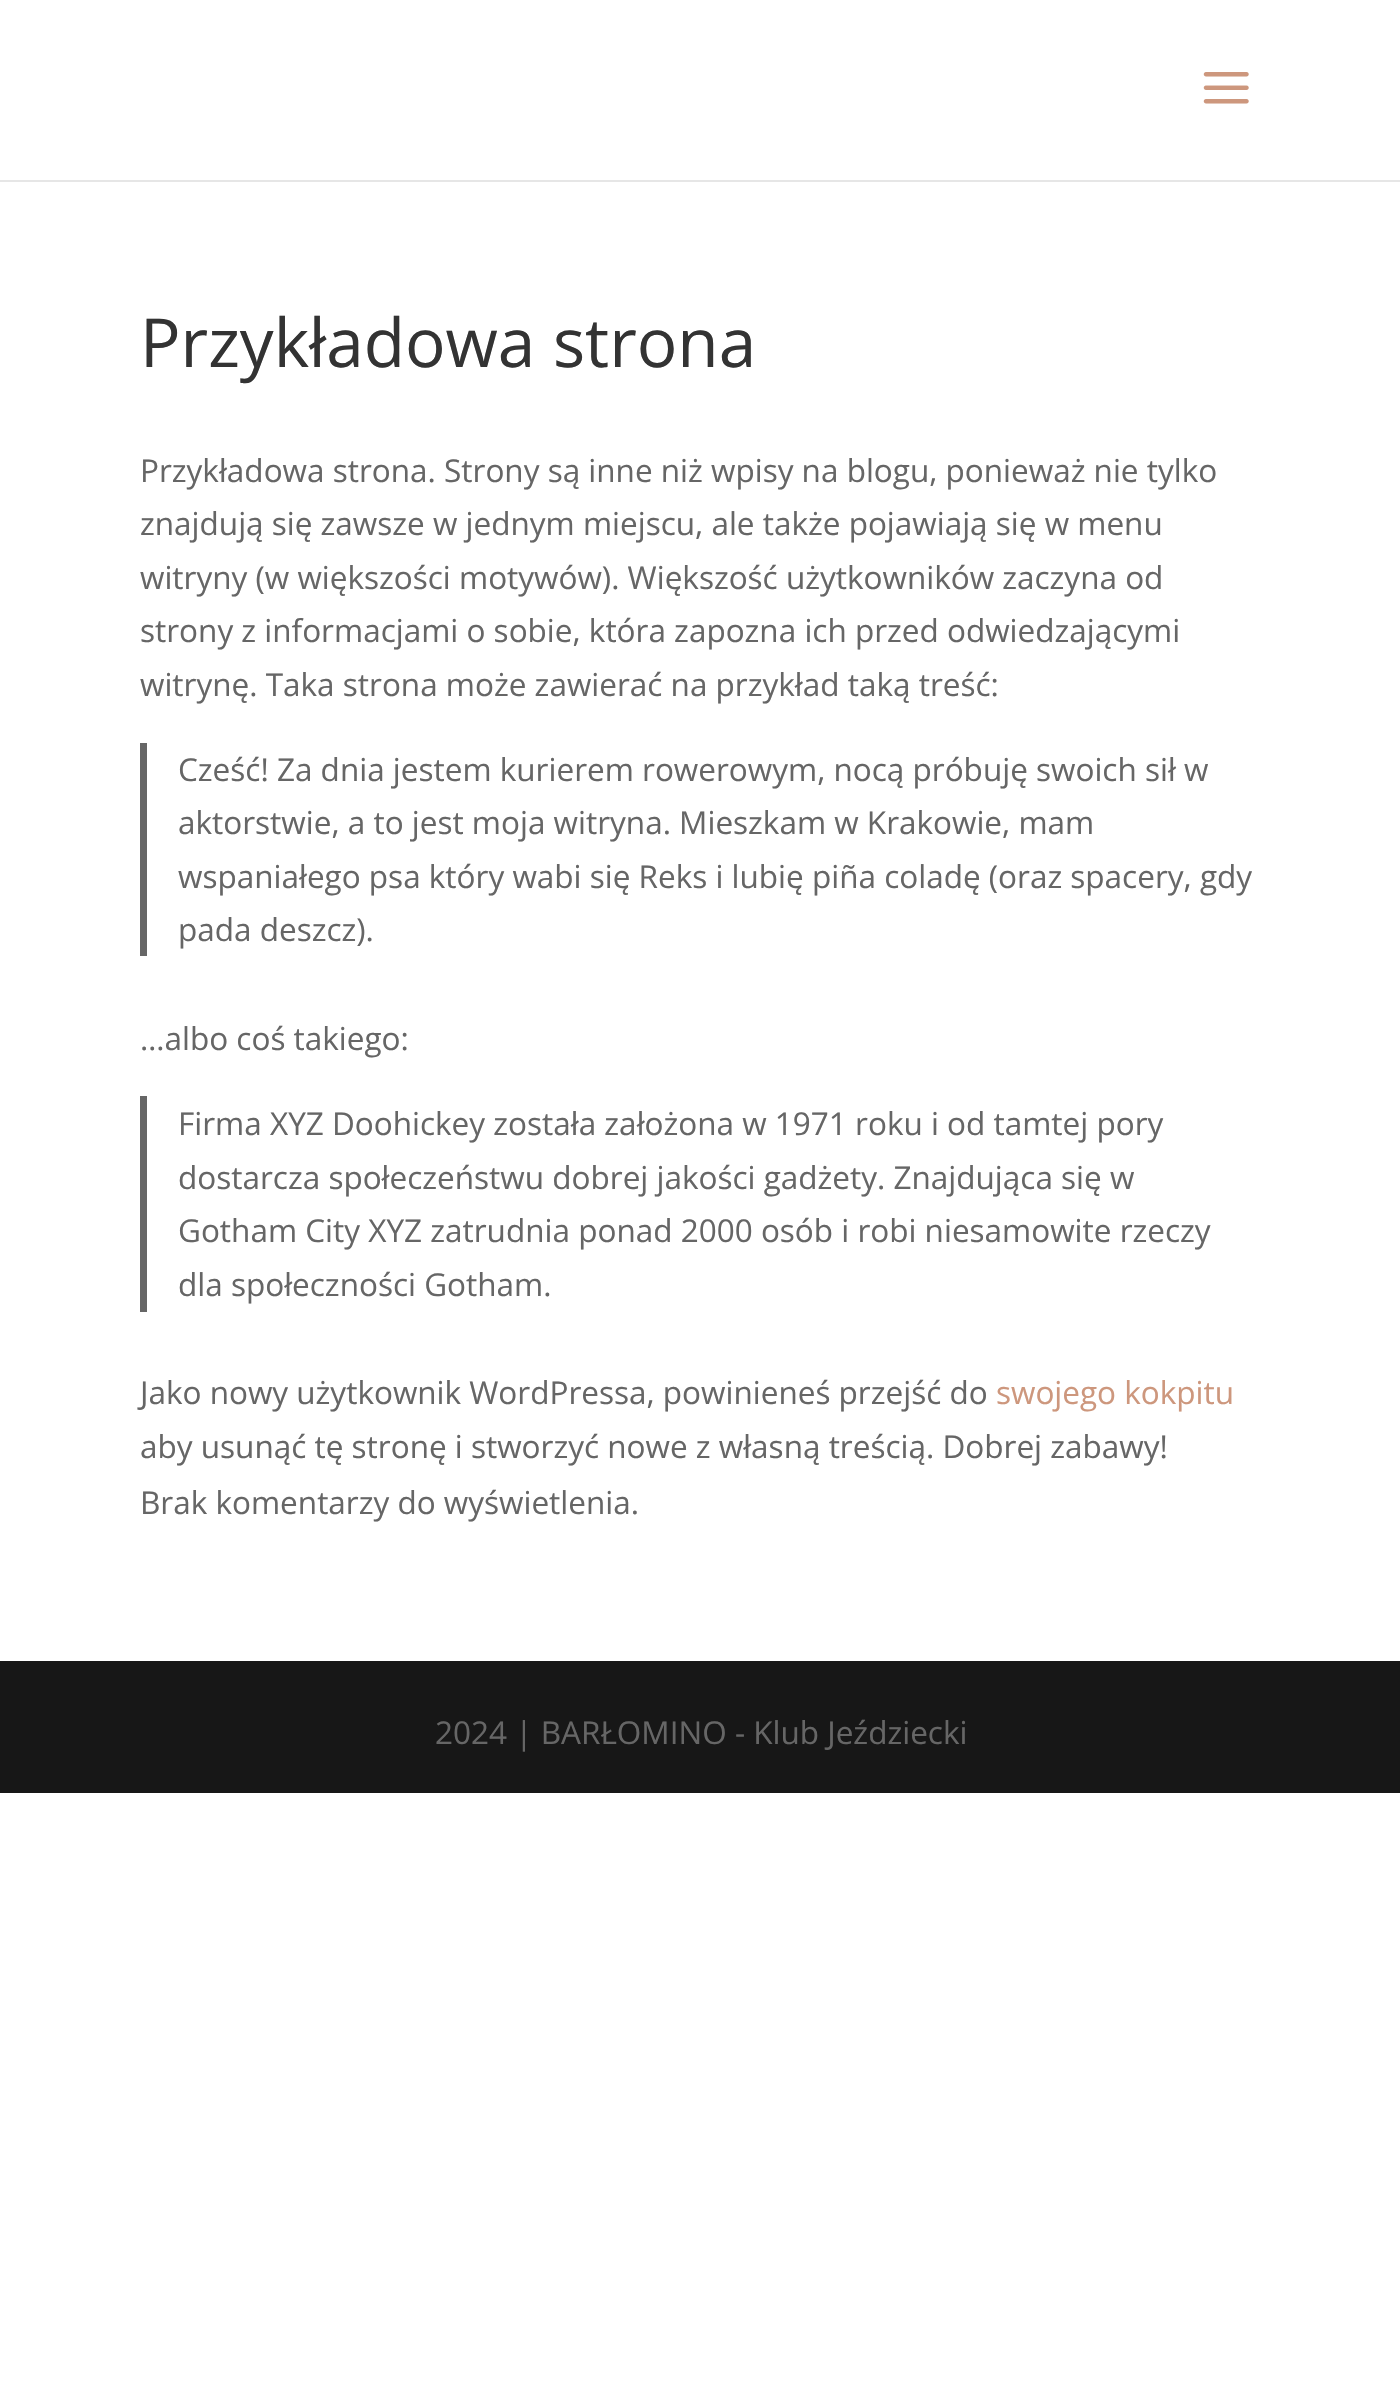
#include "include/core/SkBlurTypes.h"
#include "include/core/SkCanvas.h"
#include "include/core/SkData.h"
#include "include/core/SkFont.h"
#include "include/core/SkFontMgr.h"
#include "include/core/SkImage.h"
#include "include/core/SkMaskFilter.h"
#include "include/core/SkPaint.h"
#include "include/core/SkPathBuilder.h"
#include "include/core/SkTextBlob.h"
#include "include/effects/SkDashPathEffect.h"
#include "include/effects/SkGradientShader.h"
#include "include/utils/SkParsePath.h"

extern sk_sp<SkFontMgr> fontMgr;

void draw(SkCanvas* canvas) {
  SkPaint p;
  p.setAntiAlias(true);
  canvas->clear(SK_ColorWHITE);
  p.setColor(SkColorSetRGB(230, 230, 230));
  canvas->drawPath(SkPathBuilder().moveTo(0, 180).lineTo(0, 182).lineTo(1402, 182).lineTo(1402, 2).lineTo(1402, 180).close().detach(), p);
  canvas->drawImageRect(SkImages::DeferredFromEncodedData(SkData::MakeFromFileName("images/1.png")), SkRect::MakeLTRB(1203, 72, 1249, 104), SkSamplingOptions());
  p.setColor(SkColorSetRGB(102, 102, 102));
  canvas->drawRect(SkRect::MakeLTRB(140, 743, 147, 956), p);
  canvas->drawRect(SkRect::MakeLTRB(140, 1096, 147, 1312), p);
  p.setColor(SkColorSetRGB(23, 23, 23));
  canvas->drawRect(SkRect::MakeLTRB(0, 1661, 1400, 1793), p);
  SkFont font1(fontMgr->matchFamilyStyle("Open Sans", SkFontStyle::Normal()), 67.5f);
  font1.setSubpixel(true);
  p.setColor(SkColorSetRGB(51, 51, 51));
  canvas->drawString("Przykładowa strona", 140, 367, font1, p);
  SkFont font2(fontMgr->matchFamilyStyle("Open Sans", SkFontStyle::Normal()), 31.5f);
  font2.setSubpixel(true);
  p.setColor(SkColorSetRGB(102, 102, 102));
  canvas->drawString("Przykładowa strona. Strony są inne niż wpisy na blogu, ponieważ nie tylko", 140, 482, font2, p);
  canvas->drawString("znajdują się zawsze w jednym miejscu, ale także pojawiają się w menu", 140, 535, font2, p);
  canvas->drawString("witryny (w większości motywów). Większość użytkowników zaczyna od", 140, 589, font2, p);
  canvas->drawString("strony z informacjami o sobie, która zapozna ich przed odwiedzającymi", 140, 642, font2, p);
  canvas->drawString("witrynę. Taka strona może zawierać na przykład taką treść:", 140, 696, font2, p);
  canvas->drawString("Cześć! Za dnia jestem kurierem rowerowym, nocą próbuję swoich sił w", 178, 781, font2, p);
  canvas->drawString("aktorstwie, a to jest moja witryna. Mieszkam w Krakowie, mam", 178, 834, font2, p);
  canvas->drawString("wspaniałego psa który wabi się Reks i lubię piña coladę (oraz spacery, gdy", 178, 888, font2, p);
  canvas->drawString("pada deszcz).", 178, 941, font2, p);
  canvas->drawString("…albo coś takiego:", 140, 1050, font2, p);
  canvas->drawString("Firma XYZ Doohickey została założona w 1971 roku i od tamtej pory", 178, 1135, font2, p);
  canvas->drawString("dostarcza społeczeństwu dobrej jakości gadżety. Znajdująca się w", 178, 1189, font2, p);
  canvas->drawString("Gotham City XYZ zatrudnia ponad 2000 osób i robi niesamowite rzeczy", 178, 1242, font2, p);
  canvas->drawString("dla społeczności Gotham.", 178, 1296, font2, p);
  canvas->drawString("Jako nowy użytkownik WordPressa, powinieneś przejść do", 140, 1404, font2, p);
  p.setColor(SkColorSetRGB(205, 151, 125));
  canvas->drawString("swojego kokpitu", 996, 1404, font2, p);
  p.setColor(SkColorSetRGB(102, 102, 102));
  canvas->drawString("aby usunąć tę stronę i stworzyć nowe z własną treścią. Dobrej zabawy!", 140, 1458, font2, p);
  canvas->drawString("Brak komentarzy do wyświetlenia.", 140, 1514, font2, p);
  canvas->drawString("2024 | BARŁOMINO - Klub Jeździecki", 435, 1744, font2, p);
}
